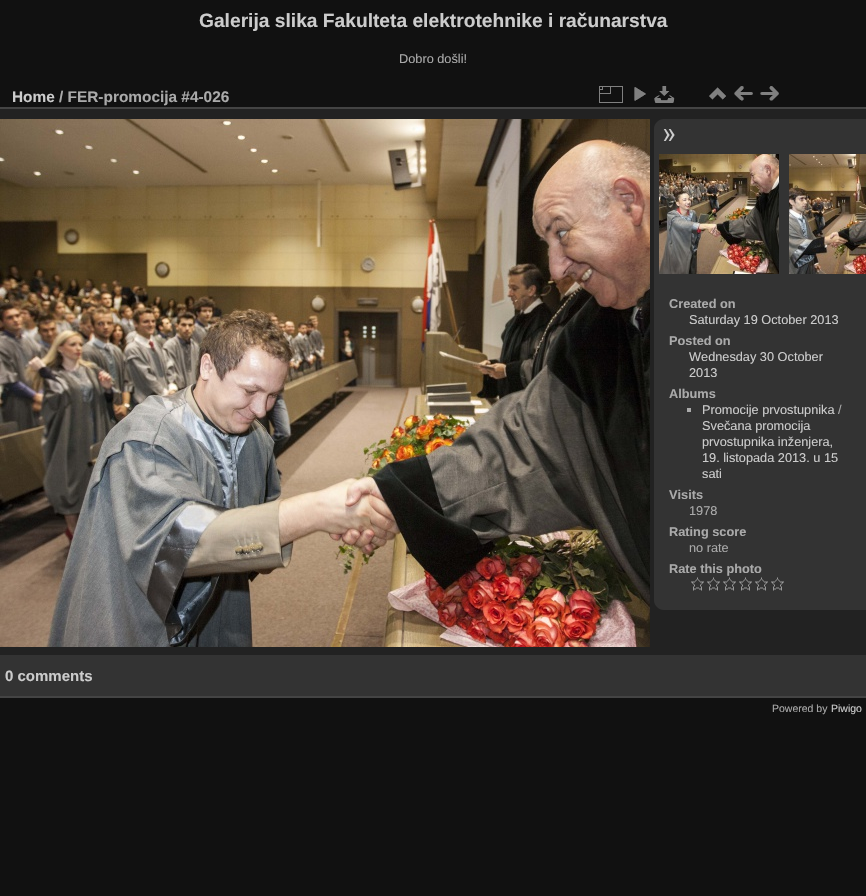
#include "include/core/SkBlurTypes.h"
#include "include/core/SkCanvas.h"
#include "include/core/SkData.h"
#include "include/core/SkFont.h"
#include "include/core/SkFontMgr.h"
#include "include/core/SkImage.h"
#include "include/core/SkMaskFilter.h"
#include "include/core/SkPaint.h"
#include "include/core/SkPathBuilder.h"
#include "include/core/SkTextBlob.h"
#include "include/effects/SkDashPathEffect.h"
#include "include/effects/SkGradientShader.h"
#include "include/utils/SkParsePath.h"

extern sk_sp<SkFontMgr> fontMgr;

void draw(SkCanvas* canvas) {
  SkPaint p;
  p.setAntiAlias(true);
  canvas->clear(SkColorSetRGB(17, 17, 17));
  p.setColor(SkColorSetRGB(34, 34, 34));
  canvas->drawRect(SkRect::MakeLTRB(0, 109, 866, 655), p);
  p.setColor(SkColorSetRGB(68, 68, 68));
  canvas->drawRect(SkRect::MakeLTRB(0, 696, 866, 698), p);
  canvas->drawRect(SkRect::MakeLTRB(0, 107, 866, 109), p);
  canvas->drawImageRect(SkImages::DeferredFromEncodedData(SkData::MakeFromFileName("images/1.png")), SkRect::MakeLTRB(599, 86, 623, 103), SkSamplingOptions());
  canvas->drawImageRect(SkImages::DeferredFromEncodedData(SkData::MakeFromFileName("images/2.png")), SkRect::MakeLTRB(634, 87, 646, 101), SkSamplingOptions());
  canvas->drawImageRect(SkImages::DeferredFromEncodedData(SkData::MakeFromFileName("images/3.png")), SkRect::MakeLTRB(654, 86, 675, 103), SkSamplingOptions());
  canvas->drawImageRect(SkImages::DeferredFromEncodedData(SkData::MakeFromFileName("images/4.png")), SkRect::MakeLTRB(709, 87, 726, 100), SkSamplingOptions());
  canvas->drawImageRect(SkImages::DeferredFromEncodedData(SkData::MakeFromFileName("images/5.png")), SkRect::MakeLTRB(734, 86, 753, 101), SkSamplingOptions());
  canvas->drawImageRect(SkImages::DeferredFromEncodedData(SkData::MakeFromFileName("images/6.png")), SkRect::MakeLTRB(760, 86, 779, 101), SkSamplingOptions());
  canvas->drawImageRect(SkImages::DeferredFromEncodedData(SkData::MakeFromFileName("images/7.png")), SkRect::MakeLTRB(0, 119, 650, 647), SkSamplingOptions());
  p.setColor(SkColorSetRGB(51, 51, 51));
  canvas->drawPath(SkPathBuilder().moveTo(664, 119).lineTo(866, 119).lineTo(866, 610).lineTo(664, 610).cubicTo(658.5f, 610, 654, 605.5f, 654, 600).lineTo(654, 129).cubicTo(654, 123.5f, 658.5f, 119, 664, 119).close().detach(), p);
  canvas->drawImageRect(SkImages::DeferredFromEncodedData(SkData::MakeFromFileName("images/8.png")), SkRect::MakeLTRB(663, 129, 675, 141), SkSamplingOptions());
  canvas->drawImageRect(SkImages::DeferredFromEncodedData(SkData::MakeFromFileName("images/9.png")), SkRect::MakeLTRB(659, 154, 779, 274), SkSamplingOptions());
  canvas->drawImageRect(SkImages::DeferredFromEncodedData(SkData::MakeFromFileName("images/10.png")), SkRect::MakeLTRB(789, 154, 866, 274), SkSamplingOptions());
  p.setColor(SkColorSetRGB(170, 170, 170));
  canvas->drawRect(SkRect::MakeLTRB(687, 408, 691, 412), p);
  canvas->drawImageRect(SkImages::DeferredFromEncodedData(SkData::MakeFromFileName("images/11.png")), SkRect::MakeLTRB(691, 577, 704, 591), SkSamplingOptions());
  canvas->drawImageRect(SkImages::DeferredFromEncodedData(SkData::MakeFromFileName("images/11.png")), SkRect::MakeLTRB(707, 577, 720, 591), SkSamplingOptions());
  canvas->drawImageRect(SkImages::DeferredFromEncodedData(SkData::MakeFromFileName("images/11.png")), SkRect::MakeLTRB(723, 577, 736, 591), SkSamplingOptions());
  canvas->drawImageRect(SkImages::DeferredFromEncodedData(SkData::MakeFromFileName("images/11.png")), SkRect::MakeLTRB(739, 577, 752, 591), SkSamplingOptions());
  canvas->drawImageRect(SkImages::DeferredFromEncodedData(SkData::MakeFromFileName("images/11.png")), SkRect::MakeLTRB(755, 577, 768, 591), SkSamplingOptions());
  canvas->drawImageRect(SkImages::DeferredFromEncodedData(SkData::MakeFromFileName("images/11.png")), SkRect::MakeLTRB(771, 577, 784, 591), SkSamplingOptions());
  p.setColor(SkColorSetRGB(51, 51, 51));
  canvas->drawRect(SkRect::MakeLTRB(0, 655, 866, 696), p);
  SkFont font1(fontMgr->matchFamilyStyle("Liberation Sans", SkFontStyle::Bold()), 19.2f);
  font1.setSubpixel(true);
  p.setColor(SkColorSetRGB(204, 204, 204));
  canvas->drawString("Galerija slika Fakulteta elektrotehnike i računarstva", 199, 27, font1, p);
  SkFont font2(fontMgr->matchFamilyStyle("Liberation Sans", SkFontStyle::Normal()), 12.75f);
  font2.setSubpixel(true);
  p.setColor(SkColorSetRGB(170, 170, 170));
  canvas->drawString("Dobro došli!", 399, 63, font2, p);
  SkFont font3(fontMgr->matchFamilyStyle("Liberation Sans", SkFontStyle::Bold()), 15.4f);
  font3.setSubpixel(true);
  p.setColor(SkColorSetRGB(204, 204, 204));
  canvas->drawString("Home", 12, 102, font3, p);
  p.setColor(SkColorSetRGB(170, 170, 170));
  canvas->drawString("/ FER-promocija #4-026", 59, 102, font3, p);
  SkFont font4(fontMgr->matchFamilyStyle("Liberation Sans", SkFontStyle::Bold()), 12.75f);
  font4.setSubpixel(true);
  canvas->drawString("Created on", 669, 308, font4, p);
  p.setColor(SkColorSetRGB(204, 204, 204));
  canvas->drawString("Saturday 19 October 2013", 689, 324, font2, p);
  p.setColor(SkColorSetRGB(170, 170, 170));
  canvas->drawString("Posted on", 669, 345, font4, p);
  p.setColor(SkColorSetRGB(204, 204, 204));
  canvas->drawString("Wednesday 30 October", 689, 361, font2, p);
  canvas->drawString("2013", 689, 377, font2, p);
  p.setColor(SkColorSetRGB(170, 170, 170));
  canvas->drawString("Albums", 669, 398, font4, p);
  p.setColor(SkColorSetRGB(204, 204, 204));
  canvas->drawString("Promocije prvostupnika", 702, 414, font2, p);
  p.setColor(SkColorSetRGB(170, 170, 170));
  canvas->drawString("/", 838, 414, font2, p);
  p.setColor(SkColorSetRGB(204, 204, 204));
  canvas->drawString("Svečana promocija", 702, 430, font2, p);
  canvas->drawString("prvostupnika inženjera,", 702, 446, font2, p);
  canvas->drawString("19. listopada 2013. u 15", 702, 462, font2, p);
  canvas->drawString("sati", 702, 478, font2, p);
  p.setColor(SkColorSetRGB(170, 170, 170));
  canvas->drawString("Visits", 669, 499, font4, p);
  canvas->drawString("1978", 689, 515, font2, p);
  canvas->drawString("Rating score", 669, 536, font4, p);
  canvas->drawString("no rate", 689, 552, font2, p);
  canvas->drawString("Rate this photo", 669, 573, font4, p);
  SkFont font5(fontMgr->matchFamilyStyle("Liberation Sans", SkFontStyle::Bold()), 15);
  font5.setSubpixel(true);
  p.setColor(SkColorSetRGB(204, 204, 204));
  canvas->drawString("0 comments", 5, 681, font5, p);
  SkFont font6(fontMgr->matchFamilyStyle("Liberation Sans", SkFontStyle::Normal()), 10.5f);
  font6.setSubpixel(true);
  p.setColor(SkColorSetRGB(170, 170, 170));
  canvas->drawString("Powered by", 772, 712, font6, p);
  p.setColor(SkColorSetRGB(204, 204, 204));
  canvas->drawString("Piwigo", 831, 712, font6, p);
}
